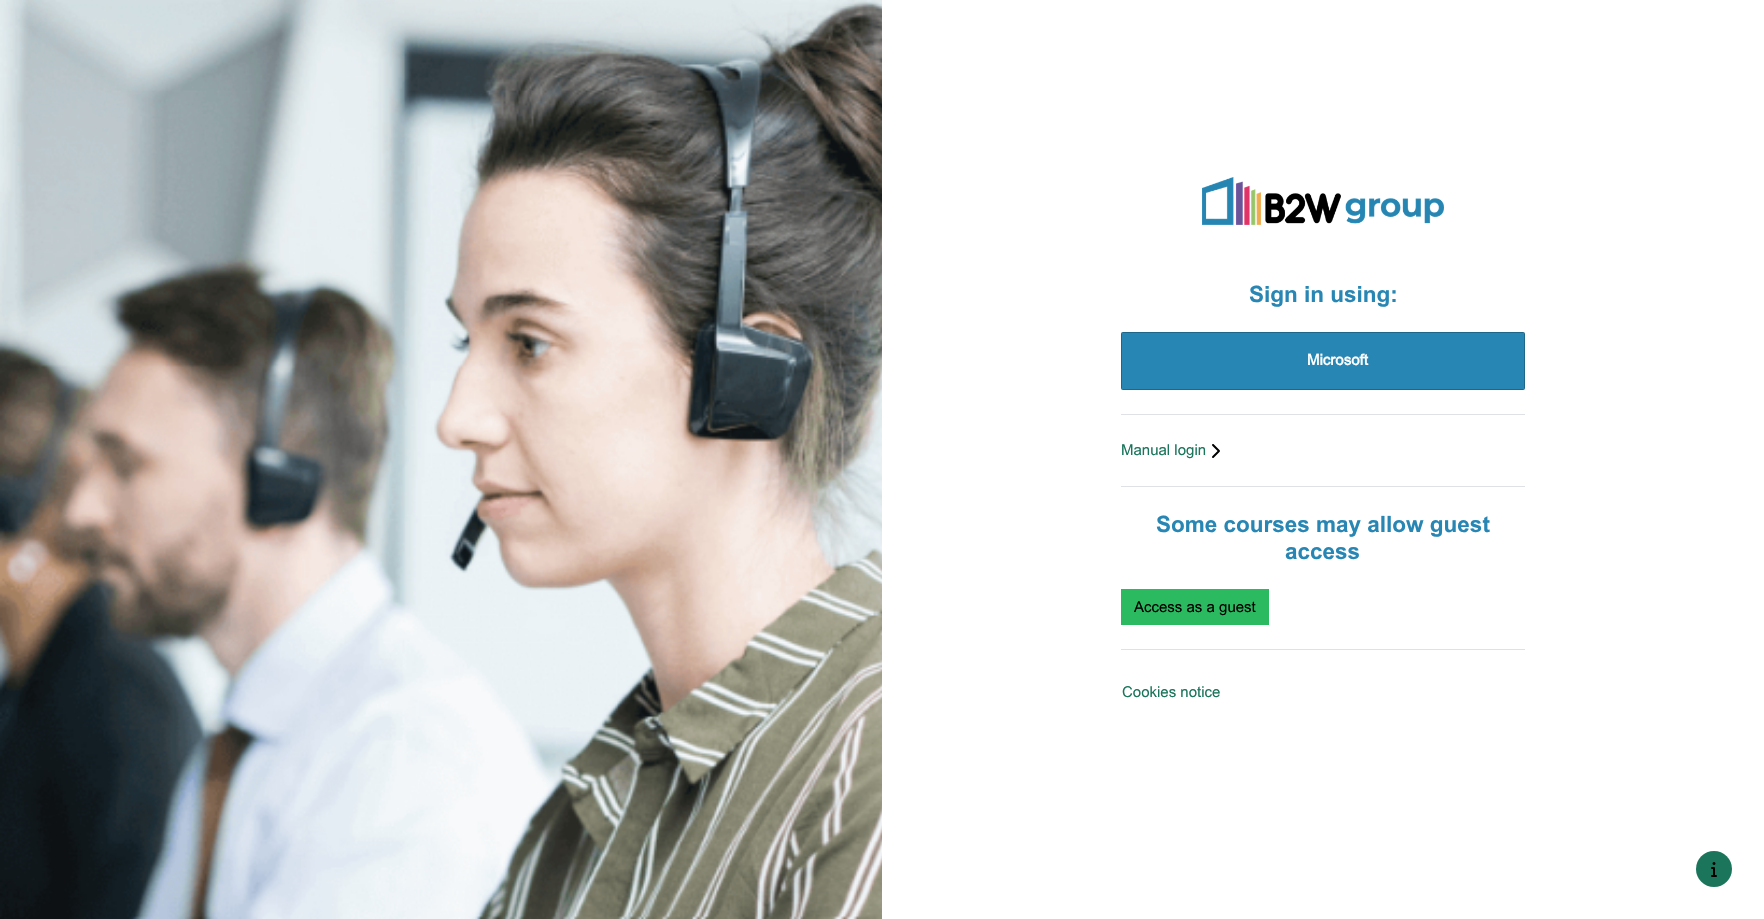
#include "include/core/SkBlurTypes.h"
#include "include/core/SkCanvas.h"
#include "include/core/SkData.h"
#include "include/core/SkFont.h"
#include "include/core/SkFontMgr.h"
#include "include/core/SkImage.h"
#include "include/core/SkMaskFilter.h"
#include "include/core/SkPaint.h"
#include "include/core/SkPathBuilder.h"
#include "include/core/SkTextBlob.h"
#include "include/effects/SkDashPathEffect.h"
#include "include/effects/SkGradientShader.h"
#include "include/utils/SkParsePath.h"

extern sk_sp<SkFontMgr> fontMgr;

void draw(SkCanvas* canvas) {
  SkPaint p;
  p.setAntiAlias(true);
  canvas->clear(SK_ColorWHITE);
  canvas->drawImageRect(SkImages::DeferredFromEncodedData(SkData::MakeFromFileName("images/1.png")), SkRect::MakeLTRB(0, 0, 882, 919), SkSamplingOptions());
  canvas->drawImageRect(SkImages::DeferredFromEncodedData(SkData::MakeFromFileName("images/2.png")), SkRect::MakeLTRB(1202, 177, 1444, 225), SkSamplingOptions());
  p.setColor(SkColorSetRGB(39, 134, 179));
  canvas->drawRoundRect(SkRect::MakeLTRB(1121.5f, 332.5f, 1524.5f, 389.5f), 1, 1, p);
  p.setStyle(SkPaint::kStroke_Style);
  p.setStrokeWidth(1);
  p.setColor(SkColorSetRGB(30, 103, 137));
  canvas->drawRoundRect(SkRect::MakeLTRB(1121.5f, 332.5f, 1524.5f, 389.5f), 1, 1, p);
  p.setStyle(SkPaint::kFill_Style);
  p.setColor(SkColorSetRGB(222, 226, 230));
  canvas->drawRect(SkRect::MakeLTRB(1121, 414, 1525, 415), p);
  canvas->drawImageRect(SkImages::DeferredFromEncodedData(SkData::MakeFromFileName("images/3.png")), SkRect::MakeLTRB(1212, 444, 1220, 458), SkSamplingOptions());
  canvas->drawRect(SkRect::MakeLTRB(1121, 486, 1525, 487), p);
  p.setColor(SkColorSetRGB(44, 186, 96));
  canvas->drawRect(SkRect::MakeLTRB(1121, 589, 1269, 625), p);
  p.setColor(SkColorSetRGB(222, 226, 230));
  canvas->drawRect(SkRect::MakeLTRB(1121, 649, 1525, 650), p);
  p.setColor(SkColorSetRGB(26, 117, 91));
  canvas->drawCircle(1714, 869, 18, p);
  canvas->drawImageRect(SkImages::DeferredFromEncodedData(SkData::MakeFromFileName("images/4.png")), SkRect::MakeLTRB(1711, 862, 1717, 877), SkSamplingOptions());
  SkFont font1(fontMgr->matchFamilyStyle("Arial", SkFontStyle::Bold()), 22.5f);
  font1.setSubpixel(true);
  p.setColor(SkColorSetRGB(39, 134, 179));
  canvas->drawString("Sign in using:", 1249, 302, font1, p);
  SkFont font2(fontMgr->matchFamilyStyle("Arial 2", SkFontStyle::Bold()), 15);
  font2.setSubpixel(true);
  p.setColor(SK_ColorWHITE);
  canvas->drawString("Microsoft", 1307, 365, font2, p);
  SkFont font3(fontMgr->matchFamilyStyle("Arial", SkFontStyle::Normal()), 15);
  font3.setSubpixel(true);
  p.setColor(SkColorSetRGB(26, 117, 91));
  canvas->drawString("Manual login", 1121, 455, font3, p);
  p.setColor(SkColorSetRGB(39, 134, 179));
  canvas->drawString("Some courses may allow guest", 1156, 532, font1, p);
  canvas->drawString("access", 1285, 559, font1, p);
  p.setColor(SK_ColorBLACK);
  canvas->drawString("Access as a guest", 1134, 612, font3, p);
  p.setColor(SkColorSetRGB(26, 117, 91));
  canvas->drawString("Cookies notice", 1122, 697, font3, p);
}
